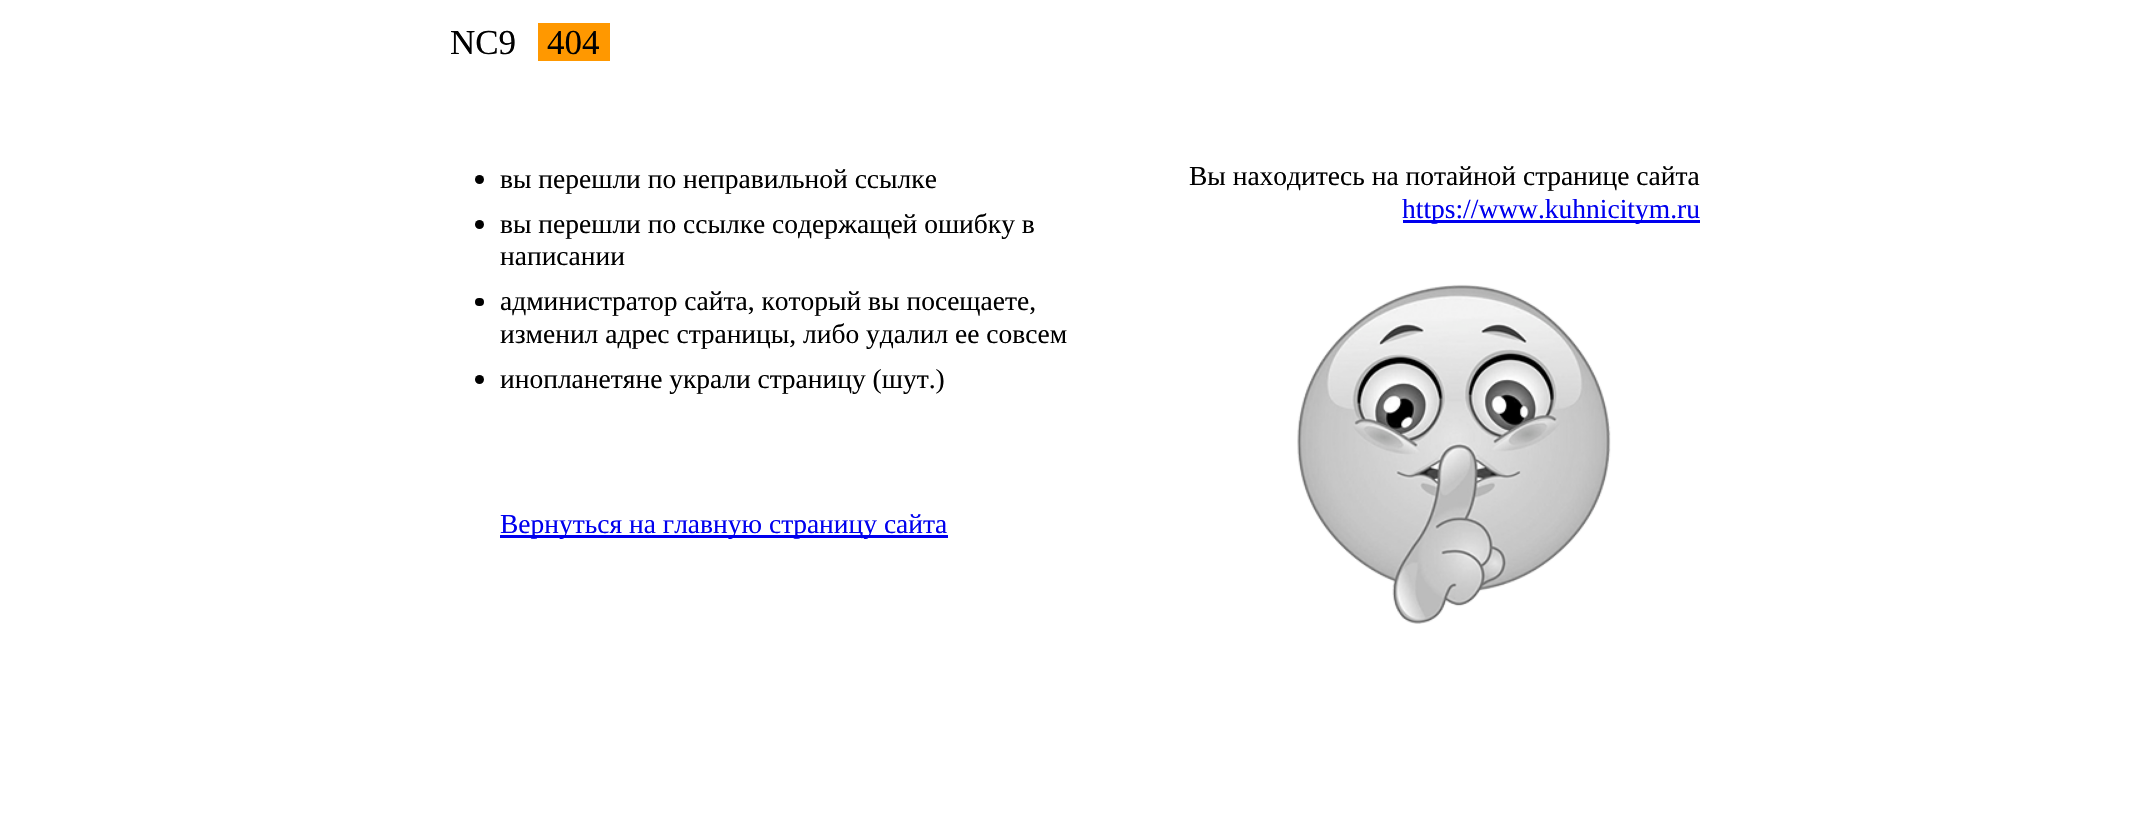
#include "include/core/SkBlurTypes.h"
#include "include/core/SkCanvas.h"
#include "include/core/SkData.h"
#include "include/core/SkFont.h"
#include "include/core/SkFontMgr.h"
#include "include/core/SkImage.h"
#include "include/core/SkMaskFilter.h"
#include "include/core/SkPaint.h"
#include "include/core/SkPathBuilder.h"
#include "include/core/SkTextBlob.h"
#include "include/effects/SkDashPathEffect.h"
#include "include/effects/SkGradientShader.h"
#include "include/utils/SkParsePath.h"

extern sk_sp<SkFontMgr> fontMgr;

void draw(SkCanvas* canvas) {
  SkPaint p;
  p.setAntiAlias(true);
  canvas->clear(SK_ColorWHITE);
  p.setColor(SkColorSetRGB(255, 152, 0));
  canvas->drawRect(SkRect::MakeLTRB(538, 23, 610, 61), p);
  p.setColor(SK_ColorBLACK);
  canvas->drawCircle(479.5f, 179.5f, 4.5f, p);
  canvas->drawCircle(479.5f, 224.5f, 4.5f, p);
  canvas->drawRoundRect(SkRect::MakeLTRB(475, 298, 484, 306), 4, 4, p);
  canvas->drawCircle(479.5f, 379.5f, 4.5f, p);
  p.setColor(SkColorSetRGB(0, 0, 238));
  canvas->drawRect(SkRect::MakeLTRB(500, 535, 948, 538), p);
  canvas->drawRect(SkRect::MakeLTRB(1403, 220, 1700, 223), p);
  canvas->drawImageRect(SkImages::DeferredFromEncodedData(SkData::MakeFromFileName("images/1.png")), SkRect::MakeLTRB(1297, 284, 1611, 624), SkSamplingOptions());
  SkFont font1(fontMgr->matchFamilyStyle("Liberation Serif", SkFontStyle::Normal()), 35);
  font1.setSubpixel(true);
  p.setColor(SK_ColorBLACK);
  canvas->drawString("NC9", 450, 54, font1, p);
  canvas->drawString("404", 547, 54, font1, p);
  SkFont font2(fontMgr->matchFamilyStyle("Liberation Serif", SkFontStyle::Normal()), 27.5f);
  font2.setSubpixel(true);
  canvas->drawString("вы перешли по неправильной ссылке", 500, 188, font2, p);
  canvas->drawString("вы перешли по ссылке содержащей ошибку в", 500, 233, font2, p);
  canvas->drawString("написании", 500, 265, font2, p);
  canvas->drawString("администратор сайта, который вы посещаете,", 500, 310, font2, p);
  canvas->drawString("изменил адрес страницы, либо удалил ее совсем", 500, 343, font2, p);
  canvas->drawString("инопланетяне украли страницу (шут.)", 500, 388, font2, p);
  p.setColor(SkColorSetRGB(0, 0, 238));
  canvas->drawString("Вернуться на главную страницу сайта", 500, 533, font2, p);
  p.setColor(SK_ColorBLACK);
  canvas->drawString("Вы находитесь на потайной странице сайта", 1189, 185, font2, p);
  p.setColor(SkColorSetRGB(0, 0, 238));
  canvas->drawString("https://www.kuhnicitym.ru", 1402, 218, font2, p);
}
